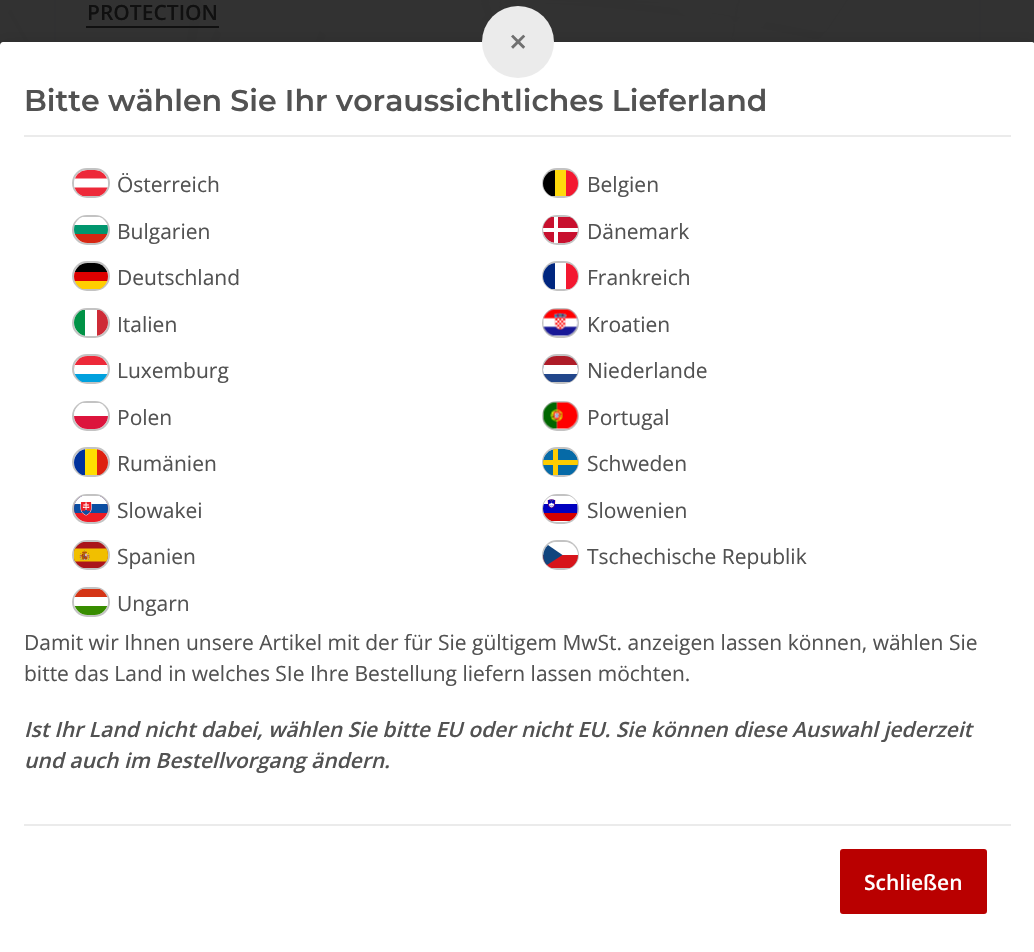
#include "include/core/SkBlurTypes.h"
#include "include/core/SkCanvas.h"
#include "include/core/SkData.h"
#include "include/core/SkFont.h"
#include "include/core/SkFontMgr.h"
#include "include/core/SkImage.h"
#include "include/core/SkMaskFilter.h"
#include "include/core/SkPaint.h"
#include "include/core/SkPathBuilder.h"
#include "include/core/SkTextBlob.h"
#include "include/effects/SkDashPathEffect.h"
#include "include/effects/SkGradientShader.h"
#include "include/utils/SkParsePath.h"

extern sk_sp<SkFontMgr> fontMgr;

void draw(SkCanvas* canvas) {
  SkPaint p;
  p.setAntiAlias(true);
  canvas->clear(SK_ColorWHITE);
  canvas->drawImageRect(SkImages::DeferredFromEncodedData(SkData::MakeFromFileName("images/1.png")), SkRect::MakeLTRB(0, 0, 1034, 45), SkSamplingOptions());
  p.setStyle(SkPaint::kStroke_Style);
  p.setStrokeWidth(2);
  p.setColor(SkColorSetRGB(49, 49, 50));
  canvas->drawRect(SkRect::MakeLTRB(55, -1, 980, 743), p);
  p.setStyle(SkPaint::kFill_Style);
  p.setColor(SkColorSetRGB(16, 16, 16));
  canvas->drawRect(SkRect::MakeLTRB(86, 26, 219, 28), p);
  p.setColor(SkColorSetARGB(26, 0, 0, 0));
  p.setMaskFilter(SkMaskFilter::MakeBlur(kNormal_SkBlurStyle, 7.5f));
  canvas->drawRoundRect(SkRect::MakeLTRB(0, 42, 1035, 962), 3, 3, p);
  p.setMaskFilter(nullptr);
  p.setColor(SK_ColorWHITE);
  canvas->drawPath(SkPathBuilder().moveTo(3, 42).lineTo(1032, 42).cubicTo(1033.5f, 42, 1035, 43.5f, 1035, 45).lineTo(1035, 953).lineTo(0, 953).lineTo(0, 45).cubicTo(0, 43.5f, 1.5f, 42, 3, 42).close().detach(), p);
  p.setColor(SkColorSetRGB(235, 235, 235));
  canvas->drawRect(SkRect::MakeLTRB(24, 135, 1011, 137), p);
  canvas->drawCircle(518, 42, 36, p);
  p.setStyle(SkPaint::kStroke_Style);
  p.setColor(SkColorSetRGB(195, 195, 195));
  canvas->drawRoundRect(SkRect::MakeLTRB(73, 169, 109, 197), 14, 14, p);
  canvas->save();
  canvas->clipPath(SkPathBuilder().moveTo(87.5f, 170).lineTo(94.5f, 170).cubicTo(102, 170, 108, 176, 108, 183.5f).cubicTo(108, 191, 102, 197, 94.5f, 197).lineTo(87.5f, 197).cubicTo(80, 197, 74, 191, 74, 183.5f).cubicTo(74, 176, 80, 170, 87.5f, 170).close().detach(), true);
  p.setStyle(SkPaint::kFill_Style);
  p.setColor(SK_ColorWHITE);
  canvas->drawPath(SkPathBuilder().moveTo(87.5f, 170).lineTo(94.5f, 170).cubicTo(102, 170, 108, 176, 108, 183.5f).lineTo(108, 196).lineTo(74, 196).lineTo(74, 183.5f).cubicTo(74, 176, 80, 170, 87.5f, 170).close().detach(), p);
  canvas->restore();
  p.setColor(SkColorSetRGB(237, 41, 57));
  canvas->drawPath(SkPathBuilder(SkPathFillType::kEvenOdd).moveTo(87.5f, 170).cubicTo(82, 170, 77, 173.5f, 75, 178.5f).lineTo(107, 178.5f).cubicTo(105, 173.5f, 100, 170, 94.5f, 170).close().moveTo(107.5f, 187.5f).lineTo(74.5f, 187.5f).cubicTo(76, 191.5f, 78.5f, 194.5f, 82.5f, 196).lineTo(99.5f, 196).cubicTo(103.5f, 194.5f, 106, 191.5f, 107.5f, 187.5f).close().detach(), p);
  p.setStyle(SkPaint::kStroke_Style);
  p.setColor(SkColorSetRGB(195, 195, 195));
  canvas->drawRoundRect(SkRect::MakeLTRB(543, 169, 578, 197), 14, 14, p);
  canvas->save();
  canvas->clipPath(SkPathBuilder().moveTo(556.5f, 170).lineTo(564.5f, 170).cubicTo(572, 170, 578, 176, 578, 183.5f).cubicTo(578, 191, 572, 197, 564.5f, 197).lineTo(556.5f, 197).cubicTo(549, 197, 543, 191, 543, 183.5f).cubicTo(543, 176, 549, 170, 556.5f, 170).close().detach(), true);
  p.setStyle(SkPaint::kFill_Style);
  p.setColor(SK_ColorBLACK);
  canvas->drawRect(SkRect::MakeLTRB(543, 170, 555, 196), p);
  canvas->restore();
  p.setColor(SkColorSetRGB(255, 217, 12));
  canvas->drawRect(SkRect::MakeLTRB(555, 170, 566, 196), p);
  canvas->save();
  canvas->clipPath(SkPathBuilder().moveTo(556.5f, 170).lineTo(564.5f, 170).cubicTo(572, 170, 578, 176, 578, 183.5f).cubicTo(578, 191, 572, 197, 564.5f, 197).lineTo(556.5f, 197).cubicTo(549, 197, 543, 191, 543, 183.5f).cubicTo(543, 176, 549, 170, 556.5f, 170).close().detach(), true);
  p.setColor(SkColorSetRGB(243, 24, 48));
  canvas->drawRect(SkRect::MakeLTRB(566, 170, 578, 196), p);
  canvas->restore();
  p.setStyle(SkPaint::kStroke_Style);
  p.setColor(SkColorSetRGB(195, 195, 195));
  canvas->drawRoundRect(SkRect::MakeLTRB(73, 216, 109, 244), 14, 14, p);
  canvas->save();
  canvas->clipPath(SkPathBuilder().moveTo(87.5f, 216).lineTo(94.5f, 216).cubicTo(102, 216, 108, 222, 108, 229.5f).cubicTo(108, 237, 102, 243, 94.5f, 243).lineTo(87.5f, 243).cubicTo(80, 243, 74, 237, 74, 229.5f).cubicTo(74, 222, 80, 216, 87.5f, 216).close().detach(), true);
  p.setStyle(SkPaint::kFill_Style);
  p.setColor(SkColorSetRGB(214, 38, 18));
  canvas->drawRect(SkRect::MakeLTRB(74, 234, 108, 243), p);
  p.setColor(SK_ColorWHITE);
  canvas->drawRect(SkRect::MakeLTRB(74, 217, 108, 225), p);
  p.setColor(SkColorSetRGB(0, 150, 110));
  canvas->drawRect(SkRect::MakeLTRB(74, 225, 108, 234), p);
  canvas->restore();
  p.setStyle(SkPaint::kStroke_Style);
  p.setColor(SkColorSetRGB(195, 195, 195));
  canvas->drawRoundRect(SkRect::MakeLTRB(543, 216, 578, 244), 14, 14, p);
  canvas->save();
  canvas->clipPath(SkPathBuilder().moveTo(556.5f, 216).lineTo(564.5f, 216).cubicTo(572, 216, 578, 222, 578, 229.5f).cubicTo(578, 237, 572, 243, 564.5f, 243).lineTo(556.5f, 243).cubicTo(549, 243, 543, 237, 543, 229.5f).cubicTo(543, 222, 549, 216, 556.5f, 216).close().detach(), true);
  p.setStyle(SkPaint::kFill_Style);
  p.setColor(SkColorSetRGB(200, 16, 46));
  canvas->drawPath(SkPathBuilder().moveTo(543, 217).lineTo(578, 217).lineTo(578, 229.5f).cubicTo(578, 237, 572, 243, 564.5f, 243).lineTo(556.5f, 243).cubicTo(549, 243, 543, 237, 543, 229.5f).close().detach(), p);
  canvas->restore();
  p.setColor(SK_ColorWHITE);
  canvas->drawRect(SkRect::MakeLTRB(554, 217, 558, 243), p);
  canvas->save();
  canvas->clipPath(SkPathBuilder().moveTo(556.5f, 216).lineTo(564.5f, 216).cubicTo(572, 216, 578, 222, 578, 229.5f).cubicTo(578, 237, 572, 243, 564.5f, 243).lineTo(556.5f, 243).cubicTo(549, 243, 543, 237, 543, 229.5f).cubicTo(543, 222, 549, 216, 556.5f, 216).close().detach(), true);
  canvas->drawRect(SkRect::MakeLTRB(543, 228, 578, 232), p);
  canvas->restore();
  p.setStyle(SkPaint::kStroke_Style);
  p.setColor(SkColorSetRGB(195, 195, 195));
  canvas->drawRoundRect(SkRect::MakeLTRB(73, 262, 109, 290), 14, 14, p);
  canvas->save();
  canvas->clipPath(SkPathBuilder().moveTo(87.5f, 263).lineTo(94.5f, 263).cubicTo(102, 263, 108, 269, 108, 276.5f).cubicTo(108, 284, 102, 290, 94.5f, 290).lineTo(87.5f, 290).cubicTo(80, 290, 74, 284, 74, 276.5f).cubicTo(74, 269, 80, 263, 87.5f, 263).close().detach(), true);
  p.setStyle(SkPaint::kFill_Style);
  p.setColor(SkColorSetRGB(255, 206, 0));
  canvas->drawRect(SkRect::MakeLTRB(74, 281, 108, 289), p);
  p.setColor(SK_ColorBLACK);
  canvas->drawRect(SkRect::MakeLTRB(74, 263, 108, 272), p);
  p.setColor(SkColorSetRGB(221, 0, 0));
  canvas->drawRect(SkRect::MakeLTRB(74, 272, 108, 281), p);
  canvas->restore();
  p.setStyle(SkPaint::kStroke_Style);
  p.setColor(SkColorSetRGB(195, 195, 195));
  canvas->drawRoundRect(SkRect::MakeLTRB(543, 262, 578, 290), 14, 14, p);
  canvas->save();
  canvas->clipPath(SkPathBuilder().moveTo(556.5f, 263).lineTo(564.5f, 263).cubicTo(572, 263, 578, 269, 578, 276.5f).cubicTo(578, 284, 572, 290, 564.5f, 290).lineTo(556.5f, 290).cubicTo(549, 290, 543, 284, 543, 276.5f).cubicTo(543, 269, 549, 263, 556.5f, 263).close().detach(), true);
  p.setStyle(SkPaint::kFill_Style);
  p.setColor(SK_ColorWHITE);
  canvas->drawPath(SkPathBuilder().moveTo(556.5f, 263).lineTo(564.5f, 263).cubicTo(572, 263, 578, 269, 578, 276.5f).lineTo(578, 289).lineTo(543, 289).lineTo(543, 276.5f).cubicTo(543, 269, 549, 263, 556.5f, 263).close().detach(), p);
  p.setColor(SkColorSetRGB(0, 38, 127));
  canvas->drawRect(SkRect::MakeLTRB(543, 263, 555, 289), p);
  p.setColor(SkColorSetRGB(243, 24, 48));
  canvas->drawRect(SkRect::MakeLTRB(566, 263, 578, 289), p);
  canvas->restore();
  p.setStyle(SkPaint::kStroke_Style);
  p.setColor(SkColorSetRGB(195, 195, 195));
  canvas->drawRoundRect(SkRect::MakeLTRB(73, 309, 109, 337), 14, 14, p);
  canvas->save();
  canvas->clipPath(SkPathBuilder().moveTo(87.5f, 309).lineTo(94.5f, 309).cubicTo(102, 309, 108, 315, 108, 322.5f).cubicTo(108, 330, 102, 336, 94.5f, 336).lineTo(87.5f, 336).cubicTo(80, 336, 74, 330, 74, 322.5f).cubicTo(74, 315, 80, 309, 87.5f, 309).close().detach(), true);
  p.setStyle(SkPaint::kFill_Style);
  p.setColor(SK_ColorWHITE);
  canvas->drawPath(SkPathBuilder().moveTo(74, 310).lineTo(108, 310).lineTo(108, 322.5f).cubicTo(108, 330, 102, 336, 94.5f, 336).lineTo(87.5f, 336).cubicTo(80, 336, 74, 330, 74, 322.5f).close().detach(), p);
  p.setColor(SkColorSetRGB(0, 146, 70));
  canvas->drawRect(SkRect::MakeLTRB(74, 310, 85, 336), p);
  p.setColor(SkColorSetRGB(206, 43, 55));
  canvas->drawRect(SkRect::MakeLTRB(97, 310, 108, 336), p);
  canvas->restore();
  p.setStyle(SkPaint::kStroke_Style);
  p.setColor(SkColorSetRGB(195, 195, 195));
  canvas->drawRoundRect(SkRect::MakeLTRB(543, 309, 578, 337), 14, 14, p);
  canvas->drawImageRect(SkImages::DeferredFromEncodedData(SkData::MakeFromFileName("images/2.png")), SkRect::MakeLTRB(543, 309, 578, 336), SkSamplingOptions());
  canvas->drawRoundRect(SkRect::MakeLTRB(73, 355, 109, 383), 14, 14, p);
  canvas->save();
  canvas->clipPath(SkPathBuilder().moveTo(87.5f, 356).lineTo(94.5f, 356).cubicTo(102, 356, 108, 362, 108, 369.5f).cubicTo(108, 377, 102, 383, 94.5f, 383).lineTo(87.5f, 383).cubicTo(80, 383, 74, 377, 74, 369.5f).cubicTo(74, 362, 80, 356, 87.5f, 356).close().detach(), true);
  p.setStyle(SkPaint::kFill_Style);
  p.setColor(SkColorSetRGB(0, 161, 222));
  canvas->drawRect(SkRect::MakeLTRB(74, 369, 108, 382), p);
  p.setColor(SkColorSetRGB(237, 41, 57));
  canvas->drawRect(SkRect::MakeLTRB(74, 356, 108, 369), p);
  p.setColor(SK_ColorWHITE);
  canvas->drawRect(SkRect::MakeLTRB(74, 365, 108, 374), p);
  canvas->restore();
  p.setStyle(SkPaint::kStroke_Style);
  p.setColor(SkColorSetRGB(195, 195, 195));
  canvas->drawRoundRect(SkRect::MakeLTRB(543, 355, 578, 383), 14, 14, p);
  canvas->save();
  canvas->clipPath(SkPathBuilder().moveTo(556.5f, 356).lineTo(564.5f, 356).cubicTo(572, 356, 578, 362, 578, 369.5f).cubicTo(578, 377, 572, 383, 564.5f, 383).lineTo(556.5f, 383).cubicTo(549, 383, 543, 377, 543, 369.5f).cubicTo(543, 362, 549, 356, 556.5f, 356).close().detach(), true);
  p.setStyle(SkPaint::kFill_Style);
  p.setColor(SkColorSetRGB(33, 70, 139));
  canvas->drawPath(SkPathBuilder().moveTo(556.5f, 356).lineTo(564.5f, 356).cubicTo(572, 356, 578, 362, 578, 369.5f).lineTo(578, 382).lineTo(543, 382).lineTo(543, 369.5f).cubicTo(543, 362, 549, 356, 556.5f, 356).close().detach(), p);
  p.setColor(SK_ColorWHITE);
  canvas->drawPath(SkPathBuilder().moveTo(556.5f, 356).lineTo(564.5f, 356).cubicTo(572, 356, 578, 362, 578, 369.5f).lineTo(578, 374).lineTo(543, 374).lineTo(543, 369.5f).cubicTo(543, 362, 549, 356, 556.5f, 356).close().detach(), p);
  p.setColor(SkColorSetRGB(174, 28, 40));
  canvas->drawRect(SkRect::MakeLTRB(543, 356, 578, 365), p);
  canvas->restore();
  p.setStyle(SkPaint::kStroke_Style);
  p.setColor(SkColorSetRGB(195, 195, 195));
  canvas->drawRoundRect(SkRect::MakeLTRB(73, 402, 109, 430), 14, 14, p);
  canvas->save();
  canvas->clipPath(SkPathBuilder().moveTo(87.5f, 402).lineTo(94.5f, 402).cubicTo(102, 402, 108, 408, 108, 415.5f).cubicTo(108, 423, 102, 429, 94.5f, 429).lineTo(87.5f, 429).cubicTo(80, 429, 74, 423, 74, 415.5f).cubicTo(74, 408, 80, 402, 87.5f, 402).close().detach(), true);
  p.setStyle(SkPaint::kFill_Style);
  p.setColor(SK_ColorWHITE);
  canvas->drawPath(SkPathBuilder().moveTo(74, 403).lineTo(108, 403).lineTo(108, 415.5f).cubicTo(108, 423, 102, 429, 94.5f, 429).lineTo(87.5f, 429).cubicTo(80, 429, 74, 423, 74, 415.5f).close().detach(), p);
  p.setColor(SkColorSetRGB(220, 20, 60));
  canvas->drawRect(SkRect::MakeLTRB(74, 416, 108, 429), p);
  canvas->restore();
  p.setStyle(SkPaint::kStroke_Style);
  p.setColor(SkColorSetRGB(195, 195, 195));
  canvas->drawRoundRect(SkRect::MakeLTRB(543, 402, 578, 430), 14, 14, p);
  canvas->drawImageRect(SkImages::DeferredFromEncodedData(SkData::MakeFromFileName("images/3.png")), SkRect::MakeLTRB(543, 402, 578, 429), SkSamplingOptions());
  canvas->drawRoundRect(SkRect::MakeLTRB(73, 448, 109, 476), 14, 14, p);
  canvas->save();
  canvas->clipPath(SkPathBuilder().moveTo(87.5f, 449).lineTo(94.5f, 449).cubicTo(102, 449, 108, 455, 108, 462.5f).cubicTo(108, 470, 102, 476, 94.5f, 476).lineTo(87.5f, 476).cubicTo(80, 476, 74, 470, 74, 462.5f).cubicTo(74, 455, 80, 449, 87.5f, 449).close().detach(), true);
  p.setStyle(SkPaint::kFill_Style);
  p.setColor(SkColorSetRGB(0, 49, 156));
  canvas->drawRect(SkRect::MakeLTRB(74, 449, 85, 475), p);
  p.setColor(SkColorSetRGB(255, 222, 0));
  canvas->drawRect(SkRect::MakeLTRB(85, 449, 97, 475), p);
  p.setColor(SkColorSetRGB(222, 33, 16));
  canvas->drawRect(SkRect::MakeLTRB(97, 449, 108, 475), p);
  canvas->restore();
  p.setStyle(SkPaint::kStroke_Style);
  p.setColor(SkColorSetRGB(195, 195, 195));
  canvas->drawRoundRect(SkRect::MakeLTRB(543, 448, 578, 476), 14, 14, p);
  canvas->save();
  canvas->clipPath(SkPathBuilder().moveTo(556.5f, 449).lineTo(564.5f, 449).cubicTo(572, 449, 578, 455, 578, 462.5f).cubicTo(578, 470, 572, 476, 564.5f, 476).lineTo(556.5f, 476).cubicTo(549, 476, 543, 470, 543, 462.5f).cubicTo(543, 455, 549, 449, 556.5f, 449).close().detach(), true);
  p.setStyle(SkPaint::kFill_Style);
  p.setColor(SkColorSetRGB(6, 106, 167));
  canvas->drawPath(SkPathBuilder().moveTo(556.5f, 449).lineTo(564.5f, 449).cubicTo(572, 449, 578, 455, 578, 462.5f).lineTo(578, 475).lineTo(543, 475).lineTo(543, 462.5f).cubicTo(543, 455, 549, 449, 556.5f, 449).close().detach(), p);
  p.setColor(SkColorSetRGB(254, 204, 0));
  canvas->drawRect(SkRect::MakeLTRB(543, 460, 578, 465), p);
  canvas->drawRect(SkRect::MakeLTRB(553, 449, 558, 475), p);
  canvas->restore();
  p.setStyle(SkPaint::kStroke_Style);
  p.setColor(SkColorSetRGB(195, 195, 195));
  canvas->drawRoundRect(SkRect::MakeLTRB(73, 495, 109, 523), 14, 14, p);
  canvas->drawImageRect(SkImages::DeferredFromEncodedData(SkData::MakeFromFileName("images/4.png")), SkRect::MakeLTRB(74, 496, 108, 522), SkSamplingOptions());
  canvas->drawRoundRect(SkRect::MakeLTRB(543, 495, 578, 523), 14, 14, p);
  canvas->drawImageRect(SkImages::DeferredFromEncodedData(SkData::MakeFromFileName("images/5.png")), SkRect::MakeLTRB(543, 496, 578, 521), SkSamplingOptions());
  canvas->drawRoundRect(SkRect::MakeLTRB(73, 541, 109, 569), 14, 14, p);
  canvas->drawImageRect(SkImages::DeferredFromEncodedData(SkData::MakeFromFileName("images/6.png")), SkRect::MakeLTRB(74, 542, 108, 568), SkSamplingOptions());
  canvas->drawRoundRect(SkRect::MakeLTRB(543, 541, 578, 569), 14, 14, p);
  canvas->save();
  canvas->clipPath(SkPathBuilder().moveTo(556.5f, 542).lineTo(564.5f, 542).cubicTo(572, 542, 578, 548, 578, 555.5f).cubicTo(578, 563, 572, 569, 564.5f, 569).lineTo(556.5f, 569).cubicTo(549, 569, 543, 563, 543, 555.5f).cubicTo(543, 548, 549, 542, 556.5f, 542).close().detach(), true);
  p.setStyle(SkPaint::kFill_Style);
  p.setColor(SK_ColorWHITE);
  canvas->drawRect(SkRect::MakeLTRB(543, 542, 578, 555), p);
  p.setColor(SkColorSetRGB(215, 20, 26));
  canvas->drawRect(SkRect::MakeLTRB(543, 555, 578, 568), p);
  canvas->restore();
  p.setColor(SkColorSetRGB(17, 69, 126));
  canvas->drawPath(SkPathBuilder().moveTo(562.5f, 555).lineTo(547, 565).cubicTo(541.5f, 560, 542, 550.5f, 548, 545).close().detach(), p);
  p.setStyle(SkPaint::kStroke_Style);
  p.setColor(SkColorSetRGB(195, 195, 195));
  canvas->drawRoundRect(SkRect::MakeLTRB(73, 588, 109, 616), 14, 14, p);
  canvas->save();
  canvas->clipPath(SkPathBuilder().moveTo(87.5f, 588).lineTo(94.5f, 588).cubicTo(102, 588, 108, 594, 108, 601.5f).cubicTo(108, 609, 102, 615, 94.5f, 615).lineTo(87.5f, 615).cubicTo(80, 615, 74, 609, 74, 601.5f).cubicTo(74, 594, 80, 588, 87.5f, 588).close().detach(), true);
  p.setStyle(SkPaint::kFill_Style);
  p.setColor(SK_ColorWHITE);
  canvas->drawPath(SkPathBuilder().moveTo(74, 589).lineTo(108, 589).lineTo(108, 601.5f).cubicTo(108, 609, 102, 615, 94.5f, 615).lineTo(87.5f, 615).cubicTo(80, 615, 74, 609, 74, 601.5f).close().detach(), p);
  p.setColor(SkColorSetRGB(56, 141, 0));
  canvas->drawRect(SkRect::MakeLTRB(74, 606, 108, 615), p);
  p.setColor(SkColorSetRGB(212, 53, 22));
  canvas->drawRect(SkRect::MakeLTRB(74, 589, 108, 597), p);
  canvas->restore();
  p.setColor(SkColorSetRGB(235, 235, 235));
  canvas->drawRect(SkRect::MakeLTRB(24, 824, 1011, 826), p);
  p.setColor(SkColorSetRGB(185, 0, 0));
  canvas->drawRoundRect(SkRect::MakeLTRB(841, 850, 986, 913), 2, 2, p);
  p.setStyle(SkPaint::kStroke_Style);
  canvas->drawRoundRect(SkRect::MakeLTRB(841, 850, 986, 913), 2, 2, p);
  SkFont font1(fontMgr->matchFamilyStyle("Open Sans", SkFontStyle(600, SkFontStyle::kNormal_Width, SkFontStyle::kUpright_Slant)), 21);
  font1.setSubpixel(true);
  p.setStyle(SkPaint::kFill_Style);
  p.setColor(SkColorSetRGB(16, 16, 16));
  canvas->drawString("PROTECTION", 87, 20, font1, p);
  SkFont font2(fontMgr->matchFamilyStyle("Open Sans", SkFontStyle(600, SkFontStyle::kNormal_Width, SkFontStyle::kUpright_Slant)), 32);
  font2.setSubpixel(true);
  p.setColor(SkColorSetRGB(112, 112, 112));
  canvas->drawString("×", 509, 53, font2, p);
  SkFont font3(fontMgr->matchFamilyStyle("Montserrat", SkFontStyle(600, SkFontStyle::kNormal_Width, SkFontStyle::kUpright_Slant)), 30);
  font3.setSubpixel(true);
  p.setColor(SkColorSetRGB(82, 82, 82));
  canvas->drawString("Bitte wählen Sie Ihr voraussichtliches Lieferland", 24, 111, font3, p);
  SkFont font4(fontMgr->matchFamilyStyle("Open Sans", SkFontStyle::Normal()), 21);
  font4.setSubpixel(true);
  canvas->drawString("Österreich", 117, 192, font4, p);
  canvas->drawString("Belgien", 587, 192, font4, p);
  canvas->drawString("Bulgarien", 117, 239, font4, p);
  canvas->drawString("Dänemark", 587, 239, font4, p);
  canvas->drawString("Deutschland", 117, 285, font4, p);
  canvas->drawString("Frankreich", 587, 285, font4, p);
  canvas->drawString("Italien", 117, 332, font4, p);
  canvas->drawString("Kroatien", 587, 332, font4, p);
  canvas->drawString("Luxemburg", 117, 378, font4, p);
  canvas->drawString("Niederlande", 587, 378, font4, p);
  canvas->drawString("Polen", 117, 425, font4, p);
  canvas->drawString("Portugal", 587, 425, font4, p);
  canvas->drawString("Rumänien", 117, 471, font4, p);
  canvas->drawString("Schweden", 587, 471, font4, p);
  canvas->drawString("Slowakei", 117, 518, font4, p);
  canvas->drawString("Slowenien", 587, 518, font4, p);
  canvas->drawString("Spanien", 117, 564, font4, p);
  canvas->drawString("Tschechische Republik", 587, 564, font4, p);
  canvas->drawString("Ungarn", 117, 611, font4, p);
  canvas->drawString("Damit wir Ihnen unsere Artikel mit der für Sie gültigem MwSt. anzeigen lassen können, wählen Sie", 24, 650, font4, p);
  canvas->drawString("bitte das Land in welches SIe Ihre Bestellung liefern lassen möchten.", 24, 681, font4, p);
  SkFont font5(fontMgr->matchFamilyStyle("Open Sans", SkFontStyle(600, SkFontStyle::kNormal_Width, SkFontStyle::kItalic_Slant)), 21);
  font5.setSubpixel(true);
  canvas->drawString("Ist Ihr Land nicht dabei, wählen Sie bitte EU oder nicht EU. Sie können diese Auswahl jederzeit", 24, 737, font5, p);
  canvas->drawString("und auch im Bestellvorgang ändern.", 24, 768, font5, p);
  p.setColor(SK_ColorWHITE);
  canvas->drawString("Schließen", 864, 890, font1, p);
}
